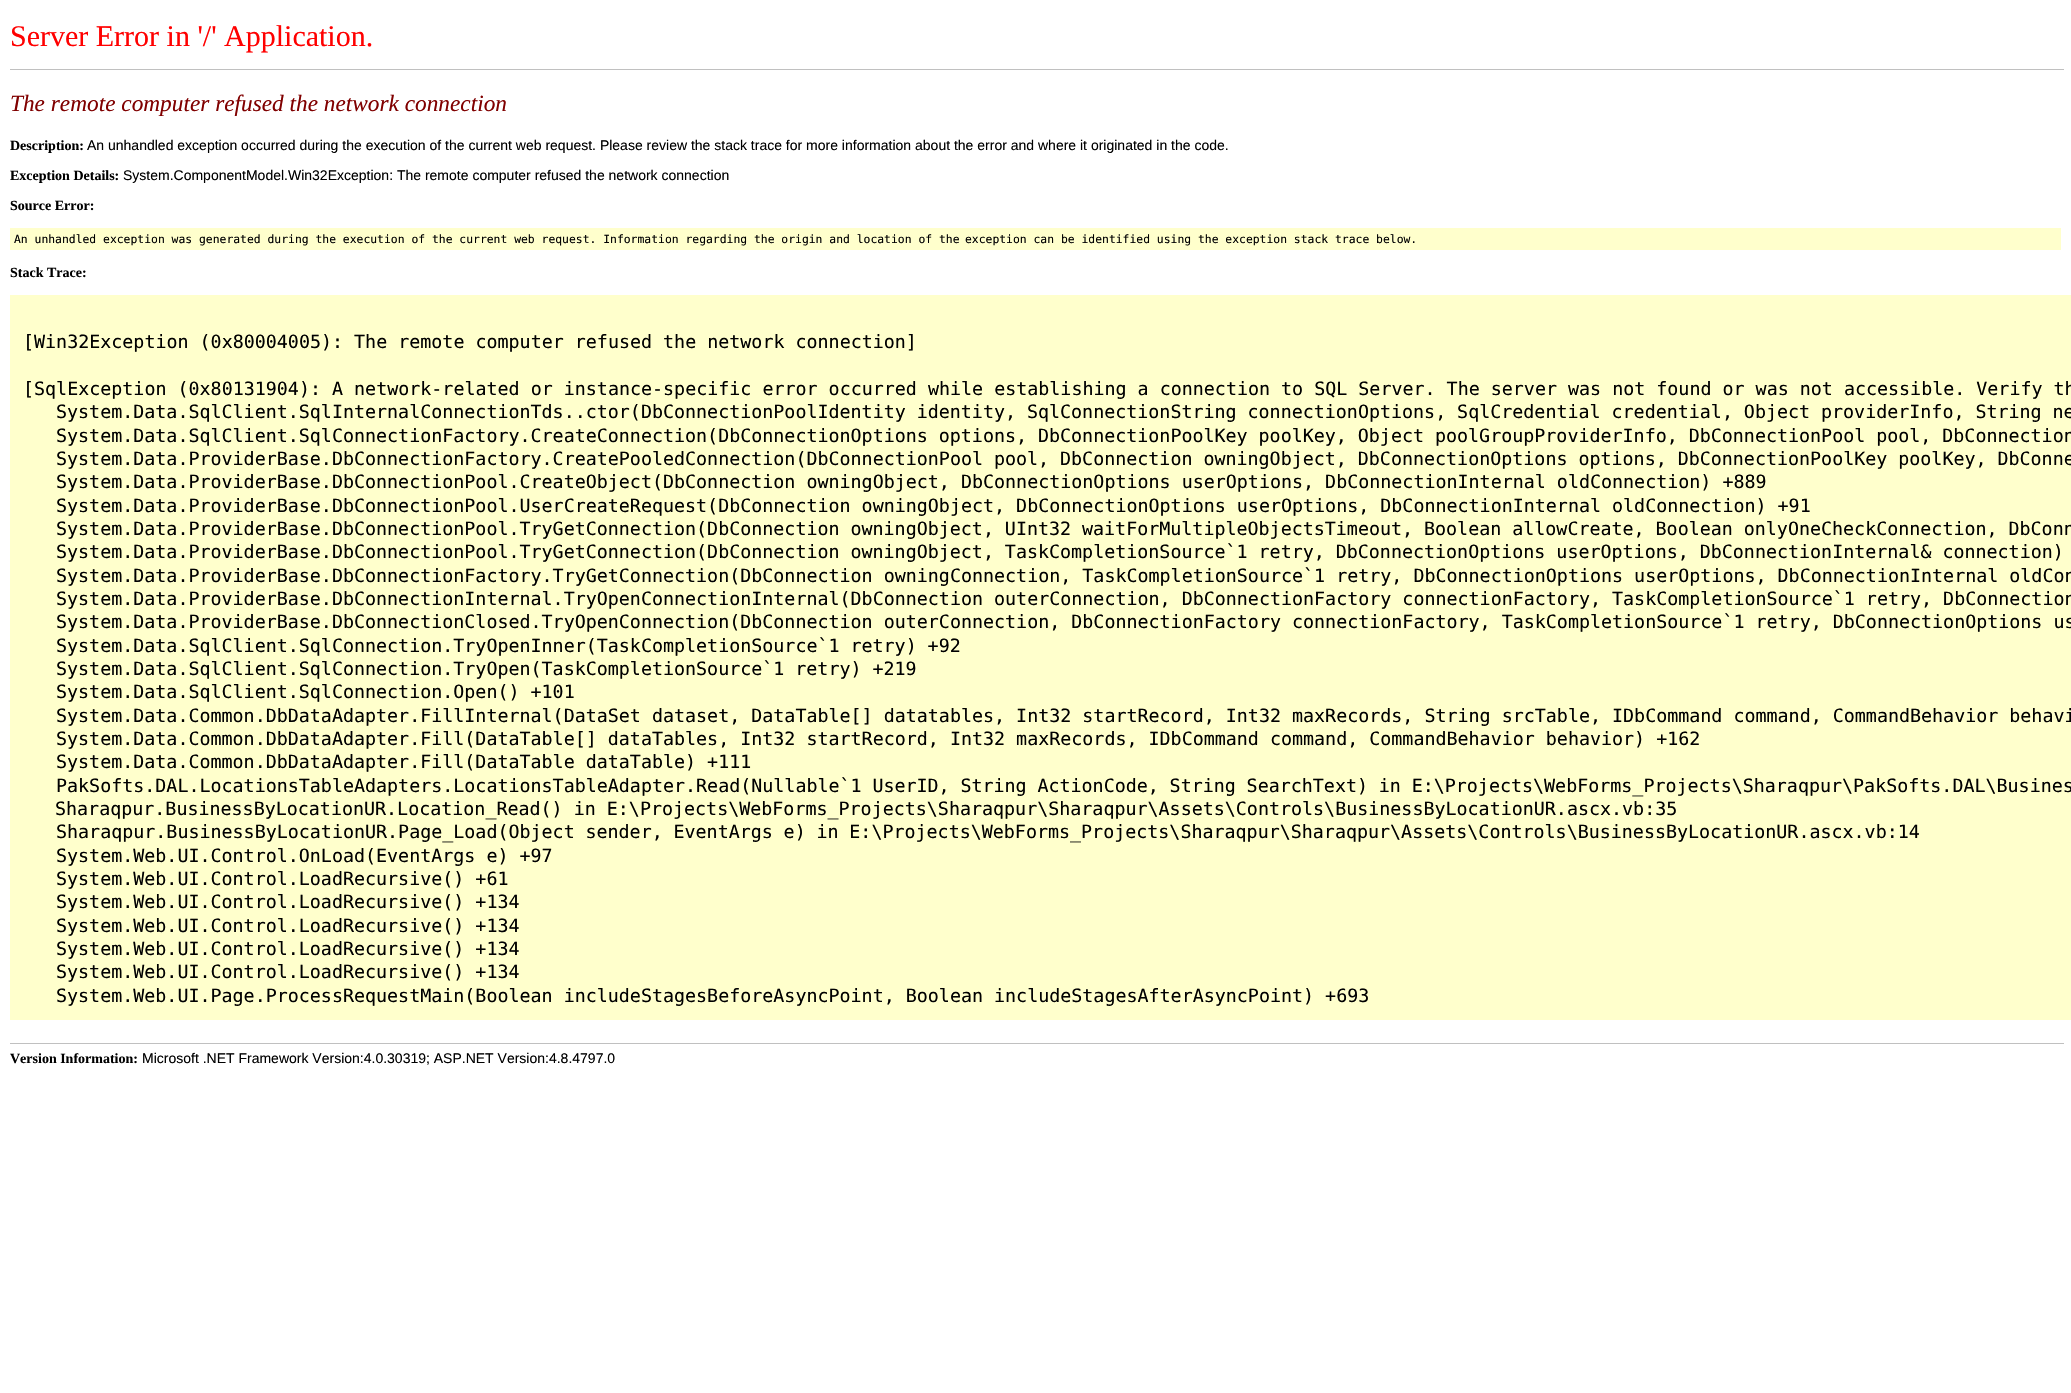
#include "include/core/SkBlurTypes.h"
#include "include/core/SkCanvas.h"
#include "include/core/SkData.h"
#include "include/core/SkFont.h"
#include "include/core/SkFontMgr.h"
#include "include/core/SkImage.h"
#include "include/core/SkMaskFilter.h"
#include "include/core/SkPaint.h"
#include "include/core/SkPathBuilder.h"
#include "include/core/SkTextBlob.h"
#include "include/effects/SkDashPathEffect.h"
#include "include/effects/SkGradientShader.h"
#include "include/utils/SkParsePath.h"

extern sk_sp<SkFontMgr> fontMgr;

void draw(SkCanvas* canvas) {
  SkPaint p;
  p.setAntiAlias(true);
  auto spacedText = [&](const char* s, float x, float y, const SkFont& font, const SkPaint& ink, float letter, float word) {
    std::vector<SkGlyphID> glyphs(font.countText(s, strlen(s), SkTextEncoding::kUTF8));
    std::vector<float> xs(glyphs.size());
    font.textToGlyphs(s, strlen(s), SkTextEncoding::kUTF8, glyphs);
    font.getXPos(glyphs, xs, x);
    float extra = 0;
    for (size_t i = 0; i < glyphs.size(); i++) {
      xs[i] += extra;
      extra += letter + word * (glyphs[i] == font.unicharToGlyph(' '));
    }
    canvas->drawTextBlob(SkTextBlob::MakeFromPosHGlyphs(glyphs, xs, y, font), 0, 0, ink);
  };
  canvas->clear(SK_ColorWHITE);
  p.setColor(SkColorSetRGB(192, 192, 192));
  canvas->drawRect(SkRect::MakeLTRB(10, 69, 2064, 70), p);
  p.setColor(SkColorSetRGB(255, 255, 204));
  canvas->drawRect(SkRect::MakeLTRB(10, 228, 2061, 250), p);
  canvas->drawRect(SkRect::MakeLTRB(10, 295, 2071, 1020), p);
  p.setColor(SkColorSetRGB(192, 192, 192));
  canvas->drawRect(SkRect::MakeLTRB(10, 1043, 2064, 1044), p);
  SkFont font1(fontMgr->matchFamilyStyle("Liberation Serif", SkFontStyle::Normal()), 30);
  font1.setSubpixel(true);
  p.setColor(SkColorSetRGB(255, 0, 0));
  canvas->drawString("Server Error in '/' Application.", 10, 46, font1, p);
  SkFont font2(fontMgr->matchFamilyStyle("Liberation Serif", SkFontStyle::Italic()), 23.3f);
  font2.setSubpixel(true);
  p.setColor(SkColorSetRGB(128, 0, 0));
  canvas->drawString("The remote computer refused the network connection", 10, 111, font2, p);
  SkFont font3(fontMgr->matchFamilyStyle("Liberation Serif", SkFontStyle::Bold()), 14);
  font3.setSubpixel(true);
  p.setColor(SK_ColorBLACK);
  canvas->drawString("Description:", 10, 150, font3, p);
  SkFont font4(fontMgr->matchFamilyStyle("Liberation Sans", SkFontStyle::Normal()), 14);
  font4.setSubpixel(true);
  canvas->drawString("An unhandled exception occurred during the execution of the current web request. Please review the stack trace for more information about the error and where it originated in the code.", 87, 150, font4, p);
  canvas->drawString("Exception Details:", 10, 180, font3, p);
  canvas->drawString("System.ComponentModel.Win32Exception: The remote computer refused the network connection", 123, 180, font4, p);
  canvas->drawString("Source Error:", 10, 210, font3, p);
  SkFont font5(fontMgr->matchFamilyStyle("DejaVu Sans Mono", SkFontStyle::Normal()), 11.38f);
  font5.setSubpixel(true);
  canvas->drawString("An unhandled exception was generated during the execution of the current web request. Information regarding the origin and location of the", 14, 243, font5, p);
  canvas->drawString("exception can be identified using the exception stack trace below.", 965, 243, font5, p);
  canvas->drawString("Stack Trace:", 10, 277, font3, p);
  SkFont font6(fontMgr->matchFamilyStyle("DejaVu Sans Mono", SkFontStyle::Normal()), 18.33f);
  font6.setSubpixel(true);
  canvas->drawString("[Win32Exception (0x80004005): The remote computer refused the network connection]", 23, 348, font6, p);
  canvas->drawString("[SqlException (0x80131904): A network-related or instance-specific error occurred while establishing a connection to SQL Server. The server was not found or was not accessible. Verify th", 23, 395, font6, p);
  spacedText("System.Data.SqlClient.SqlInternalConnectionTds..ctor(DbConnectionPoolIdentity identity, SqlConnectionString connectionOptions, SqlCredential credential, Object providerInfo, String ne", 56, 418, font6, p, 0, -0.1f);
  spacedText("System.Data.SqlClient.SqlConnectionFactory.CreateConnection(DbConnectionOptions options, DbConnectionPoolKey poolKey, Object poolGroupProviderInfo, DbConnectionPool pool, DbConnection", 56, 442, font6, p, 0, -0.1f);
  spacedText("System.Data.ProviderBase.DbConnectionFactory.CreatePooledConnection(DbConnectionPool pool, DbConnection owningObject, DbConnectionOptions options, DbConnectionPoolKey poolKey, DbConne", 56, 465, font6, p, 0, -0.1f);
  canvas->drawString("System.Data.ProviderBase.DbConnectionPool.CreateObject(DbConnection owningObject, DbConnectionOptions userOptions, DbConnectionInternal oldConnection) +889", 56, 488, font6, p);
  canvas->drawString("System.Data.ProviderBase.DbConnectionPool.UserCreateRequest(DbConnection owningObject, DbConnectionOptions userOptions, DbConnectionInternal oldConnection) +91", 56, 512, font6, p);
  spacedText("System.Data.ProviderBase.DbConnectionPool.TryGetConnection(DbConnection owningObject, UInt32 waitForMultipleObjectsTimeout, Boolean allowCreate, Boolean onlyOneCheckConnection, DbConn", 56, 535, font6, p, 0, -0.1f);
  spacedText("System.Data.ProviderBase.DbConnectionPool.TryGetConnection(DbConnection owningObject, TaskCompletionSource`1 retry, DbConnectionOptions userOptions, DbConnectionInternal& connection)", 56, 558, font6, p, 0, -0.1f);
  canvas->drawString("System.Data.ProviderBase.DbConnectionFactory.TryGetConnection(DbConnection owningConnection, TaskCompletionSource`1 retry, DbConnectionOptions userOptions, DbConnectionInternal oldCon", 56, 582, font6, p);
  canvas->drawString("System.Data.ProviderBase.DbConnectionInternal.TryOpenConnectionInternal(DbConnection outerConnection, DbConnectionFactory connectionFactory, TaskCompletionSource`1 retry, DbConnection", 56, 605, font6, p);
  canvas->drawString("System.Data.ProviderBase.DbConnectionClosed.TryOpenConnection(DbConnection outerConnection, DbConnectionFactory connectionFactory, TaskCompletionSource`1 retry, DbConnectionOptions us", 56, 628, font6, p);
  spacedText("System.Data.SqlClient.SqlConnection.TryOpenInner(TaskCompletionSource`1 retry) +92", 56, 652, font6, p, 0, -0.1f);
  spacedText("System.Data.SqlClient.SqlConnection.TryOpen(TaskCompletionSource`1 retry) +219", 56, 675, font6, p, 0, -0.1f);
  canvas->drawString("System.Data.SqlClient.SqlConnection.Open() +101", 56, 698, font6, p);
  canvas->drawString("System.Data.Common.DbDataAdapter.FillInternal(DataSet dataset, DataTable[] datatables, Int32 startRecord, Int32 maxRecords, String srcTable, IDbCommand command, CommandBehavior behavi", 56, 722, font6, p);
  canvas->drawString("System.Data.Common.DbDataAdapter.Fill(DataTable[] dataTables, Int32 startRecord, Int32 maxRecords, IDbCommand command, CommandBehavior behavior) +162", 56, 745, font6, p);
  canvas->drawString("System.Data.Common.DbDataAdapter.Fill(DataTable dataTable) +111", 56, 768, font6, p);
  spacedText("PakSofts.DAL.LocationsTableAdapters.LocationsTableAdapter.Read(Nullable`1 UserID, String ActionCode, String SearchText) in E:\\Projects\\WebForms_Projects\\Sharaqpur\\PakSofts.DAL\\Busines", 56, 792, font6, p, 0, -0.25f);
  canvas->drawString("Sharaqpur.BusinessByLocationUR.Location_Read() in E:\\Projects\\WebForms_Projects\\Sharaqpur\\Sharaqpur\\Assets\\Controls\\BusinessByLocationUR.ascx.vb:35", 55, 815, font6, p);
  spacedText("Sharaqpur.BusinessByLocationUR.Page_Load(Object sender, EventArgs e) in E:\\Projects\\WebForms_Projects\\Sharaqpur\\Sharaqpur\\Assets\\Controls\\BusinessByLocationUR.ascx.vb:14", 56, 838, font6, p, 0, -0.25f);
  canvas->drawString("System.Web.UI.Control.OnLoad(EventArgs e) +97", 56, 862, font6, p);
  canvas->drawString("System.Web.UI.Control.LoadRecursive() +61", 56, 885, font6, p);
  canvas->drawString("System.Web.UI.Control.LoadRecursive() +134", 56, 908, font6, p);
  canvas->drawString("System.Web.UI.Control.LoadRecursive() +134", 56, 932, font6, p);
  canvas->drawString("System.Web.UI.Control.LoadRecursive() +134", 56, 955, font6, p);
  canvas->drawString("System.Web.UI.Control.LoadRecursive() +134", 56, 978, font6, p);
  canvas->drawString("System.Web.UI.Page.ProcessRequestMain(Boolean includeStagesBeforeAsyncPoint, Boolean includeStagesAfterAsyncPoint) +693", 56, 1002, font6, p);
  canvas->drawString("Version Information:", 10, 1063, font3, p);
  canvas->drawString("Microsoft .NET Framework Version:4.0.30319; ASP.NET Version:4.8.4797.0", 142, 1063, font4, p);
}
